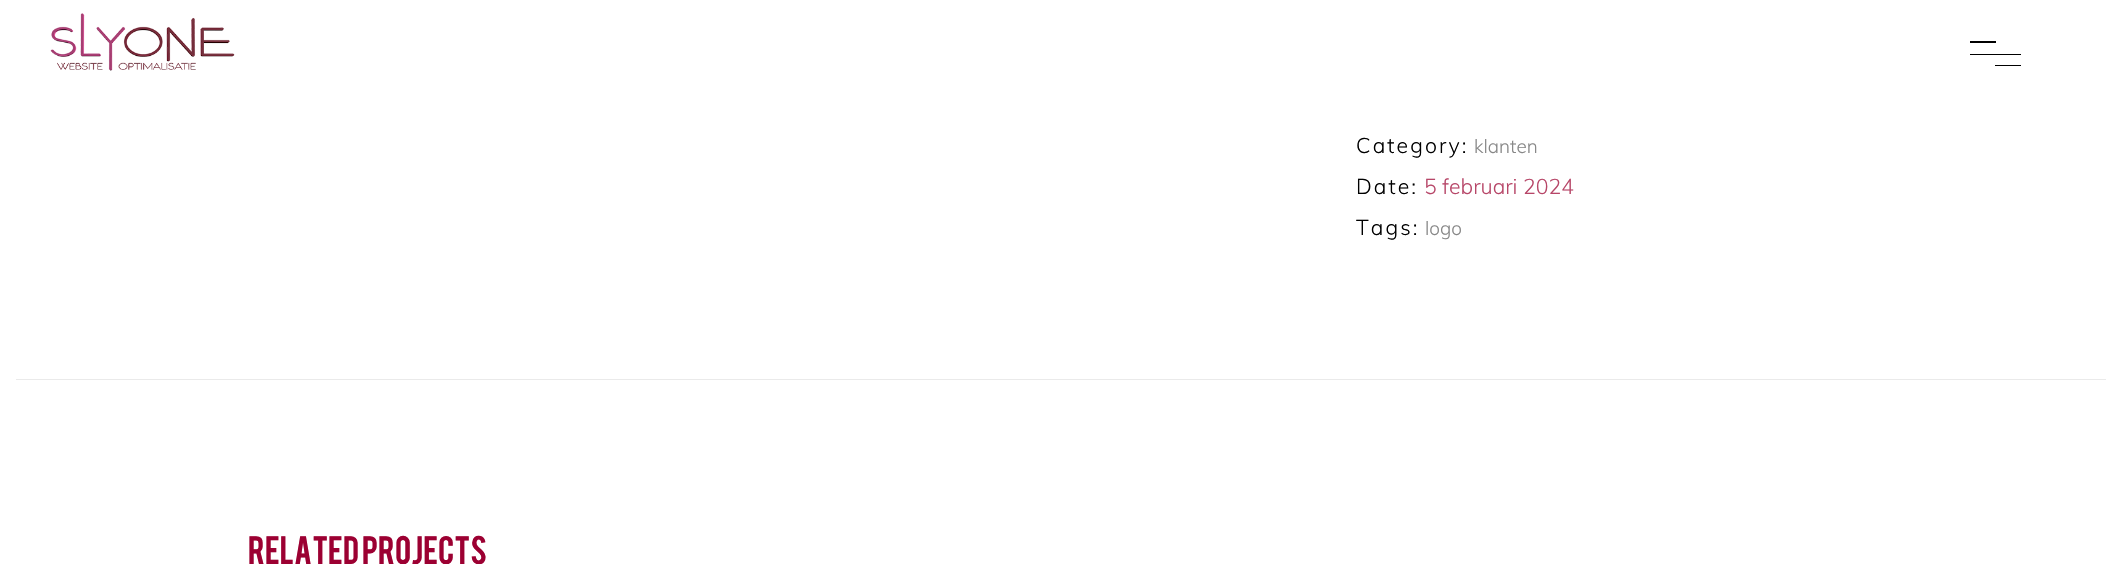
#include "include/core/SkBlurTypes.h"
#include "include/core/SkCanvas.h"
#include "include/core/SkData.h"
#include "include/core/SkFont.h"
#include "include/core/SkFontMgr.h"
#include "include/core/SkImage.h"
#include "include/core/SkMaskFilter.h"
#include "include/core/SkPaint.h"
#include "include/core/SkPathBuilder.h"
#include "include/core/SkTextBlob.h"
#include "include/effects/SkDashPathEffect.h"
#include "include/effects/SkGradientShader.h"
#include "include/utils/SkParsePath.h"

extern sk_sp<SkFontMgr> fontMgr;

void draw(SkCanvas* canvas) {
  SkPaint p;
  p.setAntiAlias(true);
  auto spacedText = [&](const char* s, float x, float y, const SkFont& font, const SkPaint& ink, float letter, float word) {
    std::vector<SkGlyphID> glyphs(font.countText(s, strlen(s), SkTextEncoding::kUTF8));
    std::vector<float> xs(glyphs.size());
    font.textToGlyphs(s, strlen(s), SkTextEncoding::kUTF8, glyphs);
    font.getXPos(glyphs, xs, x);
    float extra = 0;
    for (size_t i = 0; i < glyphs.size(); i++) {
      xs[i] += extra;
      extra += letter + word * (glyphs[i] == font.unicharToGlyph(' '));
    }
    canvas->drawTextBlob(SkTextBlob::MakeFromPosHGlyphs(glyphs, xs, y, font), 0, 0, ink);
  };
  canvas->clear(SK_ColorWHITE);
  canvas->drawImageRect(SkImages::DeferredFromEncodedData(SkData::MakeFromFileName("images/1.png")), SkRect::MakeLTRB(50, 13, 235, 71), SkSamplingOptions());
  p.setColor(SK_ColorBLACK);
  canvas->drawRect(SkRect::MakeLTRB(1970, 41, 1996, 43), p);
  canvas->drawRect(SkRect::MakeLTRB(1970, 54, 2021, 55), p);
  canvas->drawRect(SkRect::MakeLTRB(1995, 65, 2021, 66), p);
  p.setColor(SkColorSetRGB(234, 234, 234));
  canvas->drawRect(SkRect::MakeLTRB(16, 379, 2106, 380), p);
  SkFont font1(fontMgr->matchFamilyStyle("Muli", SkFontStyle(300, SkFontStyle::kNormal_Width, SkFontStyle::kUpright_Slant)), 21.25f);
  font1.setSubpixel(true);
  p.setColor(SK_ColorBLACK);
  spacedText("Category:", 1356, 153, font1, p, 2.1f, 0);
  SkFont font2(fontMgr->matchFamilyStyle("Muli", SkFontStyle(300, SkFontStyle::kNormal_Width, SkFontStyle::kUpright_Slant)), 19);
  font2.setSubpixel(true);
  p.setColor(SkColorSetRGB(135, 135, 135));
  canvas->drawString("klanten", 1474, 153, font2, p);
  p.setColor(SK_ColorBLACK);
  spacedText("Date:", 1356, 194, font1, p, 2.1f, 0);
  p.setColor(SkColorSetRGB(183, 70, 104));
  canvas->drawString("5 februari 2024", 1424, 194, font1, p);
  p.setColor(SK_ColorBLACK);
  spacedText("Tags:", 1356, 235, font1, p, 2.1f, 0);
  p.setColor(SkColorSetRGB(135, 135, 135));
  canvas->drawString("logo", 1425, 235, font2, p);
  SkFont font3(fontMgr->matchFamilyStyle("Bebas", SkFontStyle::Normal()), 31.25f);
  font3.setSubpixel(true);
  p.setColor(SkColorSetRGB(156, 0, 50));
  canvas->drawString("Related projects", 248, 564, font3, p);
}
